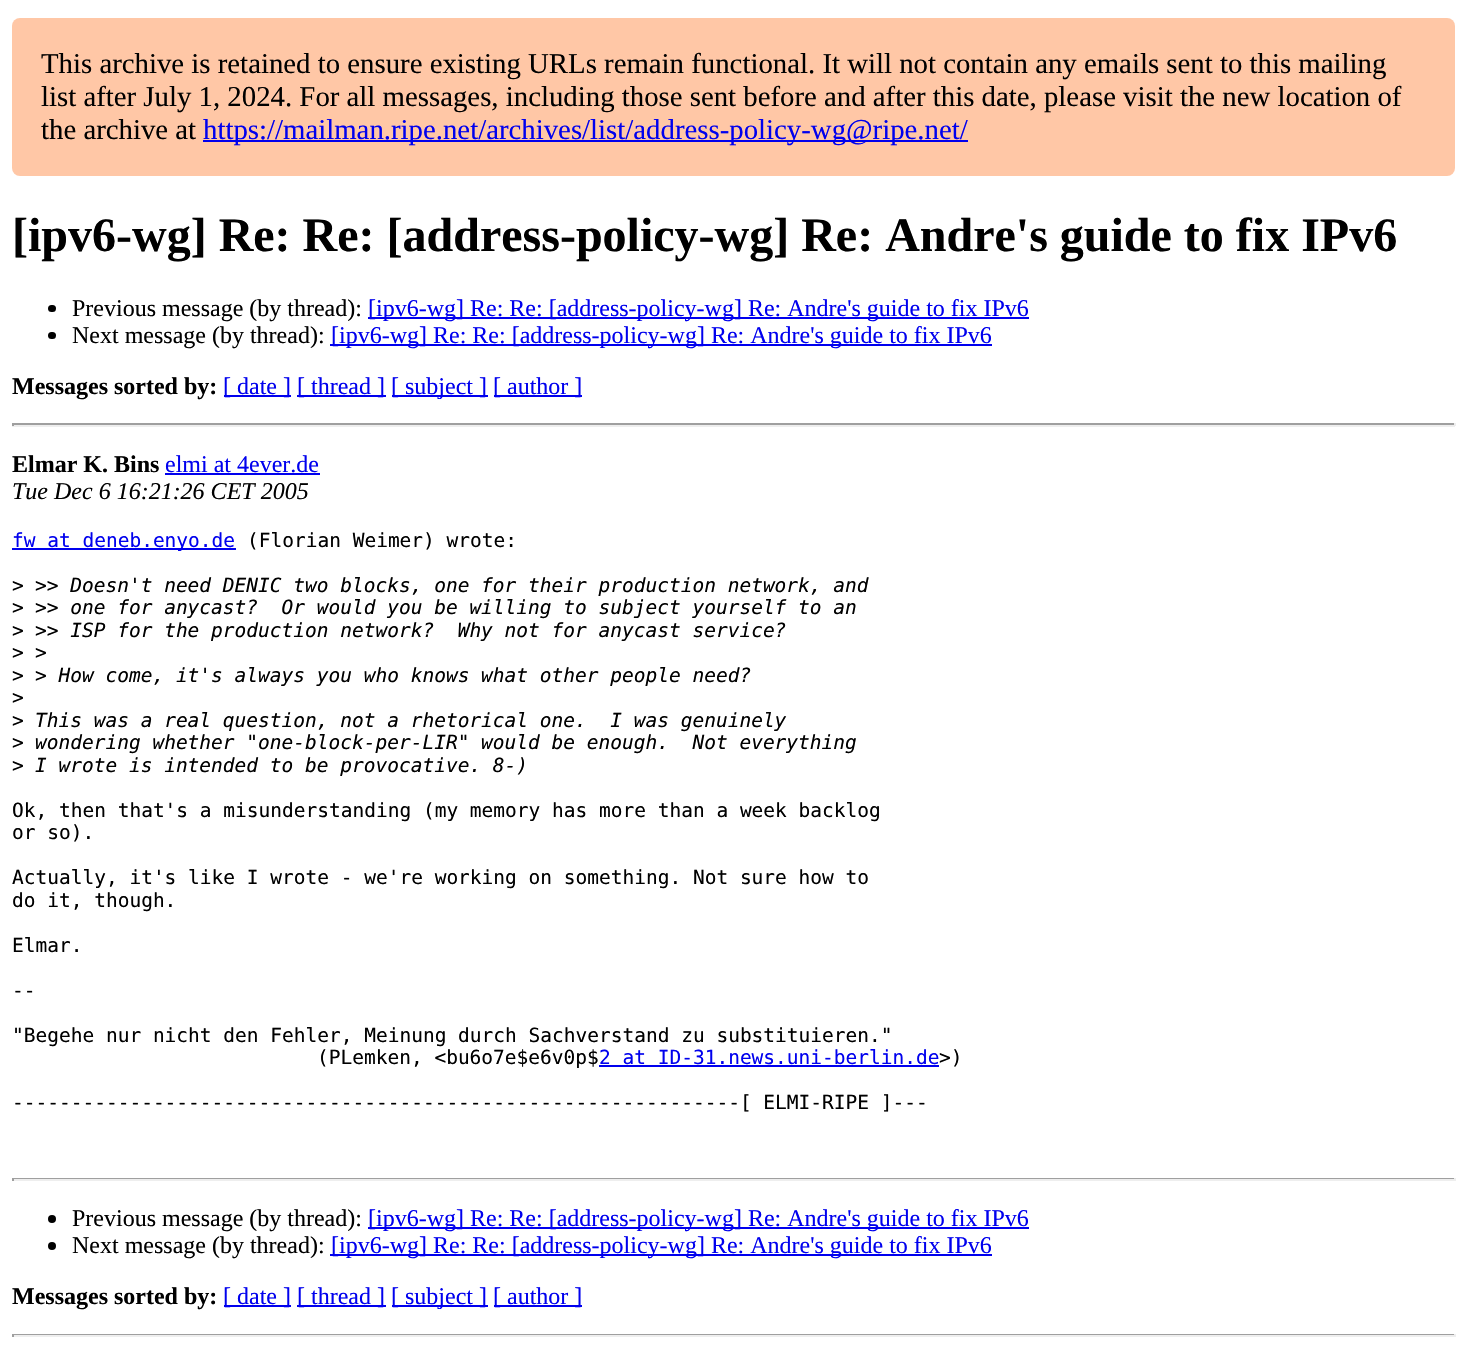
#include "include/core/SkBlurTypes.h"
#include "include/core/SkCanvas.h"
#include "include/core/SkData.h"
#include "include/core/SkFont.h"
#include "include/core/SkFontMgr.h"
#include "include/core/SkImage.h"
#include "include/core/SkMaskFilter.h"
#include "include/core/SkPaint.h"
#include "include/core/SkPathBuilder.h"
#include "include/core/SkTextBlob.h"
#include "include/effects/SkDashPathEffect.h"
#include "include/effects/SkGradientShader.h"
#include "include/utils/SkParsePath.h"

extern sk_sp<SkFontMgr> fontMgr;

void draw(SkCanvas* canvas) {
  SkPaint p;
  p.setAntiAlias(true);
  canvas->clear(SK_ColorWHITE);
  p.setColor(SkColorSetRGB(255, 199, 166));
  canvas->drawRoundRect(SkRect::MakeLTRB(12, 18, 1455, 176), 8, 8, p);
  p.setColor(SkColorSetRGB(0, 0, 238));
  canvas->drawRect(SkRect::MakeLTRB(203, 140, 968, 142), p);
  p.setColor(SK_ColorBLACK);
  canvas->drawRoundRect(SkRect::MakeLTRB(48, 305, 56, 312), 3.5f, 3.5f, p);
  p.setColor(SkColorSetRGB(0, 0, 238));
  canvas->drawRect(SkRect::MakeLTRB(368, 317, 1029, 319), p);
  p.setColor(SK_ColorBLACK);
  canvas->drawRoundRect(SkRect::MakeLTRB(48, 332, 56, 339), 3.5f, 3.5f, p);
  p.setColor(SkColorSetRGB(0, 0, 238));
  canvas->drawRect(SkRect::MakeLTRB(330, 344, 992, 346), p);
  canvas->drawRect(SkRect::MakeLTRB(224, 395, 291, 397), p);
  canvas->drawRect(SkRect::MakeLTRB(297, 395, 386, 397), p);
  canvas->drawRect(SkRect::MakeLTRB(392, 395, 488, 397), p);
  canvas->drawRect(SkRect::MakeLTRB(494, 395, 582, 397), p);
  p.setColor(SkColorSetRGB(159, 159, 159));
  canvas->drawRect(SkRect::MakeLTRB(12, 423, 1455, 425), p);
  p.setColor(SkColorSetRGB(238, 238, 238));
  canvas->drawRect(SkRect::MakeLTRB(1454, 423, 1456, 426), p);
  canvas->drawRect(SkRect::MakeLTRB(12, 425, 1455, 427), p);
  p.setColor(SkColorSetRGB(159, 159, 159));
  canvas->drawRect(SkRect::MakeLTRB(12, 423, 14, 426), p);
  p.setColor(SkColorSetRGB(0, 0, 238));
  canvas->drawRect(SkRect::MakeLTRB(165, 473, 320, 475), p);
  canvas->drawRect(SkRect::MakeLTRB(12, 548, 236, 550), p);
  canvas->drawRect(SkRect::MakeLTRB(599, 1065, 939, 1067), p);
  p.setColor(SkColorSetRGB(159, 159, 159));
  canvas->drawRect(SkRect::MakeLTRB(12, 1178, 1455, 1179), p);
  p.setColor(SkColorSetRGB(238, 238, 238));
  canvas->drawRect(SkRect::MakeLTRB(1454, 1178, 1456, 1181), p);
  canvas->drawRect(SkRect::MakeLTRB(12, 1179, 1455, 1181), p);
  p.setColor(SkColorSetRGB(159, 159, 159));
  canvas->drawRect(SkRect::MakeLTRB(12, 1178, 14, 1181), p);
  p.setColor(SK_ColorBLACK);
  canvas->drawCircle(52, 1219, 4, p);
  p.setColor(SkColorSetRGB(0, 0, 238));
  canvas->drawRect(SkRect::MakeLTRB(368, 1227, 1029, 1229), p);
  p.setColor(SK_ColorBLACK);
  canvas->drawCircle(52, 1246, 4, p);
  p.setColor(SkColorSetRGB(0, 0, 238));
  canvas->drawRect(SkRect::MakeLTRB(330, 1254, 992, 1256), p);
  canvas->drawRect(SkRect::MakeLTRB(224, 1305, 291, 1307), p);
  canvas->drawRect(SkRect::MakeLTRB(297, 1305, 386, 1307), p);
  canvas->drawRect(SkRect::MakeLTRB(392, 1305, 488, 1307), p);
  canvas->drawRect(SkRect::MakeLTRB(494, 1305, 582, 1307), p);
  p.setColor(SkColorSetRGB(159, 159, 159));
  canvas->drawRect(SkRect::MakeLTRB(12, 1334, 1455, 1335), p);
  p.setColor(SkColorSetRGB(238, 238, 238));
  canvas->drawRect(SkRect::MakeLTRB(1454, 1334, 1456, 1337), p);
  canvas->drawRect(SkRect::MakeLTRB(12, 1335, 1455, 1337), p);
  p.setColor(SkColorSetRGB(159, 159, 159));
  canvas->drawRect(SkRect::MakeLTRB(12, 1334, 14, 1337), p);
  SkFont font1(fontMgr->matchFamilyStyle("Liberation Serif", SkFontStyle::Normal()), 28.8f);
  font1.setSubpixel(true);
  p.setColor(SK_ColorBLACK);
  canvas->drawString("This archive is retained to ensure existing URLs remain functional. It will not contain any emails sent to this mailing", 41, 73, font1, p);
  canvas->drawString("list after July 1, 2024. For all messages, including those sent before and after this date, please visit the new location of", 41, 106, font1, p);
  canvas->drawString("the archive at", 41, 139, font1, p);
  p.setColor(SkColorSetRGB(0, 0, 238));
  canvas->drawString("https://mailman.ripe.net/archives/list/address-policy-wg@ripe.net/", 203, 139, font1, p);
  SkFont font2(fontMgr->matchFamilyStyle("Liberation Serif", SkFontStyle::Bold()), 48);
  font2.setSubpixel(true);
  p.setColor(SK_ColorBLACK);
  canvas->drawString("[ipv6-wg] Re: Re: [address-policy-wg] Re: Andre's guide to fix IPv6", 12, 251, font2, p);
  SkFont font3(fontMgr->matchFamilyStyle("Liberation Serif", SkFontStyle::Normal()), 24);
  font3.setSubpixel(true);
  canvas->drawString("Previous message (by thread):", 72, 316, font3, p);
  p.setColor(SkColorSetRGB(0, 0, 238));
  canvas->drawString("[ipv6-wg] Re: Re: [address-policy-wg] Re: Andre's guide to fix IPv6", 368, 316, font3, p);
  p.setColor(SK_ColorBLACK);
  canvas->drawString("Next message (by thread):", 72, 343, font3, p);
  p.setColor(SkColorSetRGB(0, 0, 238));
  canvas->drawString("[ipv6-wg] Re: Re: [address-policy-wg] Re: Andre's guide to fix IPv6", 331, 343, font3, p);
  SkFont font4(fontMgr->matchFamilyStyle("Liberation Serif", SkFontStyle::Bold()), 24);
  font4.setSubpixel(true);
  p.setColor(SK_ColorBLACK);
  canvas->drawString("Messages sorted by:", 12, 394, font4, p);
  p.setColor(SkColorSetRGB(0, 0, 238));
  canvas->drawString("[ date ]", 223, 394, font3, p);
  canvas->drawString("[ thread ]", 297, 394, font3, p);
  canvas->drawString("[ subject ]", 391, 394, font3, p);
  canvas->drawString("[ author ]", 493, 394, font3, p);
  p.setColor(SK_ColorBLACK);
  canvas->drawString("Elmar K. Bins", 12, 472, font4, p);
  p.setColor(SkColorSetRGB(0, 0, 238));
  canvas->drawString("elmi at 4ever.de", 165, 472, font3, p);
  SkFont font5(fontMgr->matchFamilyStyle("Liberation Serif", SkFontStyle::Italic()), 24);
  font5.setSubpixel(true);
  p.setColor(SK_ColorBLACK);
  canvas->drawString("Tue Dec 6 16:21:26 CET 2005", 12, 499, font5, p);
  SkFont font6(fontMgr->matchFamilyStyle("DejaVu Sans Mono", SkFontStyle::Normal()), 19.5f);
  font6.setSubpixel(true);
  p.setColor(SkColorSetRGB(0, 0, 238));
  canvas->drawString("fw at deneb.enyo.de", 12, 547, font6, p);
  p.setColor(SK_ColorBLACK);
  canvas->drawString("(Florian Weimer) wrote:", 247, 547, font6, p);
  canvas->drawString(">", 12, 592, font6, p);
  SkFont font7(fontMgr->matchFamilyStyle("DejaVu Sans Mono", SkFontStyle::Italic()), 19.5f);
  font7.setSubpixel(true);
  canvas->drawString(">> Doesn't need DENIC two blocks, one for their production network, and", 35, 592, font7, p);
  canvas->drawString(">", 12, 614, font6, p);
  canvas->drawString(">> one for anycast?  Or would you be willing to subject yourself to an", 35, 614, font7, p);
  canvas->drawString(">", 12, 637, font6, p);
  canvas->drawString(">> ISP for the production network?  Why not for anycast service?", 35, 637, font7, p);
  canvas->drawString(">", 12, 659, font6, p);
  canvas->drawString(">", 35, 659, font7, p);
  canvas->drawString(">", 12, 682, font6, p);
  canvas->drawString("> How come, it's always you who knows what other people need?", 35, 682, font7, p);
  canvas->drawString(">", 12, 704, font6, p);
  canvas->drawString(">", 12, 727, font6, p);
  canvas->drawString("This was a real question, not a rhetorical one.  I was genuinely", 35, 727, font7, p);
  canvas->drawString(">", 12, 749, font6, p);
  canvas->drawString("wondering whether \"one-block-per-LIR\" would be enough.  Not everything", 35, 749, font7, p);
  canvas->drawString(">", 12, 772, font6, p);
  canvas->drawString("I wrote is intended to be provocative. 8-)", 35, 772, font7, p);
  canvas->drawString("Ok, then that's a misunderstanding (my memory has more than a week backlog", 12, 817, font6, p);
  canvas->drawString("or so).", 12, 839, font6, p);
  canvas->drawString("Actually, it's like I wrote - we're working on something. Not sure how to", 12, 884, font6, p);
  canvas->drawString("do it, though.", 12, 907, font6, p);
  canvas->drawString("Elmar.", 12, 952, font6, p);
  canvas->drawString("--", 12, 997, font6, p);
  canvas->drawString("\"Begehe nur nicht den Fehler, Meinung durch Sachverstand zu substituieren.\"", 12, 1042, font6, p);
  canvas->drawString("(PLemken, <bu6o7e$e6v0p$", 317, 1064, font6, p);
  p.setColor(SkColorSetRGB(0, 0, 238));
  canvas->drawString("2 at ID-31.news.uni-berlin.de", 599, 1064, font6, p);
  p.setColor(SK_ColorBLACK);
  canvas->drawString(">)", 939, 1064, font6, p);
  canvas->drawString("--------------------------------------------------------------[ ELMI-RIPE ]---", 12, 1109, font6, p);
  canvas->drawString("Previous message (by thread):", 72, 1226, font3, p);
  p.setColor(SkColorSetRGB(0, 0, 238));
  canvas->drawString("[ipv6-wg] Re: Re: [address-policy-wg] Re: Andre's guide to fix IPv6", 368, 1226, font3, p);
  p.setColor(SK_ColorBLACK);
  canvas->drawString("Next message (by thread):", 72, 1253, font3, p);
  p.setColor(SkColorSetRGB(0, 0, 238));
  canvas->drawString("[ipv6-wg] Re: Re: [address-policy-wg] Re: Andre's guide to fix IPv6", 331, 1253, font3, p);
  p.setColor(SK_ColorBLACK);
  canvas->drawString("Messages sorted by:", 12, 1304, font4, p);
  p.setColor(SkColorSetRGB(0, 0, 238));
  canvas->drawString("[ date ]", 223, 1304, font3, p);
  canvas->drawString("[ thread ]", 297, 1304, font3, p);
  canvas->drawString("[ subject ]", 391, 1304, font3, p);
  canvas->drawString("[ author ]", 493, 1304, font3, p);
}
